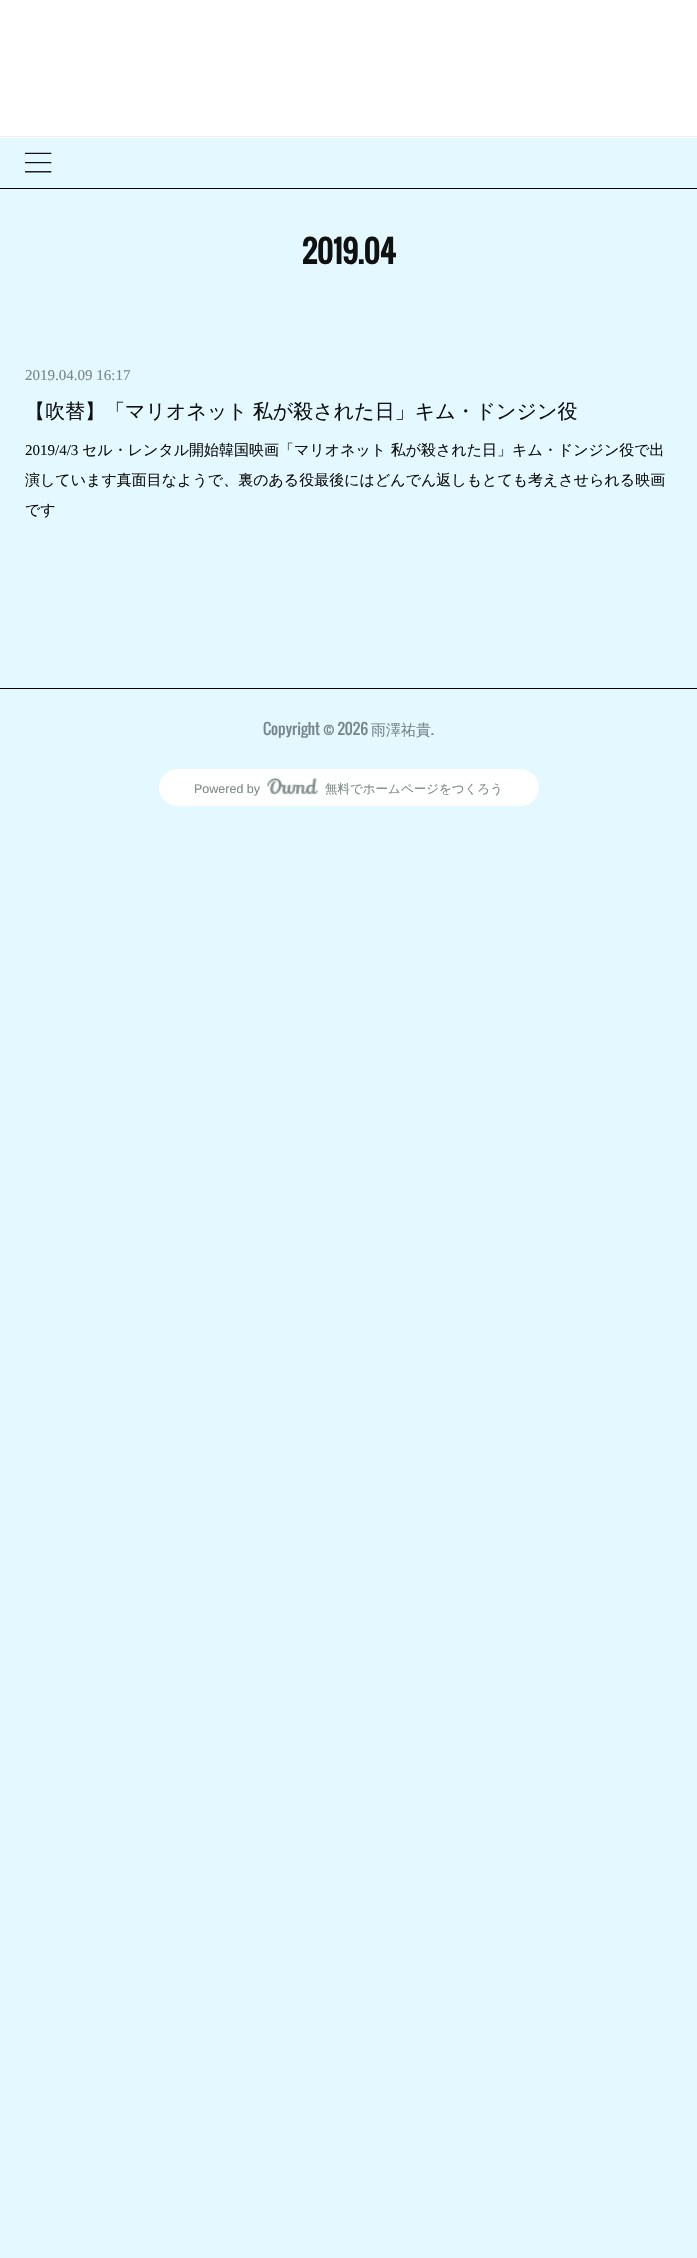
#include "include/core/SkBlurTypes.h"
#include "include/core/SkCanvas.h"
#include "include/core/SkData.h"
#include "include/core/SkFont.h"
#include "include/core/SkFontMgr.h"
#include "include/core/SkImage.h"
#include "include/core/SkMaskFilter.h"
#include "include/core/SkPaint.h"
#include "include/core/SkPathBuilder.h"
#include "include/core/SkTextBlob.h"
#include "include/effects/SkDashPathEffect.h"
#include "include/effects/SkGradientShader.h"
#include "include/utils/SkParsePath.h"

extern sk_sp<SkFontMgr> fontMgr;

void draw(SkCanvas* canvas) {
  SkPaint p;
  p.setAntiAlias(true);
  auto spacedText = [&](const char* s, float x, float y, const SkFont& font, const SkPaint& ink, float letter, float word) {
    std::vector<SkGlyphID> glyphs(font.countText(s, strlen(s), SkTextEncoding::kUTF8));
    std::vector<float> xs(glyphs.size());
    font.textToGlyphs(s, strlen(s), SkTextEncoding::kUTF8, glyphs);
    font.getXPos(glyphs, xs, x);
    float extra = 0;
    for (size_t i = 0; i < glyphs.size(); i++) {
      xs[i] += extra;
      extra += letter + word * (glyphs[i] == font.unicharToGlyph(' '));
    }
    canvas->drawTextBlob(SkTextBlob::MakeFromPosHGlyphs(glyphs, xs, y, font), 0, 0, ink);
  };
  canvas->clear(SkColorSetRGB(227, 249, 255));
  p.setColor(SK_ColorWHITE);
  canvas->drawRect(SkRect::MakeLTRB(0, 0, 697, 138), p);
  p.setColor(SkColorSetRGB(238, 238, 238));
  canvas->drawRect(SkRect::MakeLTRB(0, 136, 697, 137), p);
  p.setColor(SK_ColorBLACK);
  canvas->drawRect(SkRect::MakeLTRB(0, 188, 697, 189), p);
  canvas->drawImageRect(SkImages::DeferredFromEncodedData(SkData::MakeFromFileName("images/1.png")), SkRect::MakeLTRB(25, 152, 52, 173), SkSamplingOptions());
  canvas->drawRect(SkRect::MakeLTRB(0, 688, 697, 689), p);
  p.setColor(SK_ColorWHITE);
  canvas->drawRoundRect(SkRect::MakeLTRB(159, 769, 539, 806), 18.5f, 18.5f, p);
  canvas->drawImageRect(SkImages::DeferredFromEncodedData(SkData::MakeFromFileName("images/2.png")), SkRect::MakeLTRB(266, 777, 319, 795), SkSamplingOptions());
  SkFont font1(fontMgr->matchFamilyStyle("Oswald", SkFontStyle::Bold()), 30);
  font1.setSubpixel(true);
  p.setColor(SkColorSetRGB(17, 17, 17));
  canvas->drawString("2019.04", 302, 264, font1, p);
  SkFont font2(fontMgr->matchFamilyStyle("Liberation Serif", SkFontStyle::Normal()), 15);
  font2.setSubpixel(true);
  p.setColor(SkColorSetRGB(122, 133, 136));
  canvas->drawString("2019.04.09 16:17", 25, 380, font2, p);
  SkFont font3(fontMgr->matchFamilyStyle("WenQuanYi Zen Hei", SkFontStyle(500, SkFontStyle::kNormal_Width, SkFontStyle::kUpright_Slant)), 20);
  font3.setSubpixel(true);
  p.setColor(SkColorSetRGB(17, 17, 17));
  spacedText("【吹替】「マリオネット 私が殺された日」キム・ドンジン役", 25, 418, font3, p, 0, -1);
  canvas->drawString("2019/4/3", 25, 455, font2, p);
  SkFont font4(fontMgr->matchFamilyStyle("WenQuanYi Zen Hei", SkFontStyle(500, SkFontStyle::kNormal_Width, SkFontStyle::kUpright_Slant)), 15);
  font4.setSubpixel(true);
  canvas->drawString("セル・レンタル開始韓国映画「マリオネット 私が殺された日」キム・ドンジン役で出", 82, 455, font4, p);
  canvas->drawString("演しています真面目なようで、裏のある役最後にはどんでん返しもとても考えさせられる映画", 25, 485, font4, p);
  canvas->drawString("です", 25, 515, font4, p);
  SkFont font5(fontMgr->matchFamilyStyle("Oswald", SkFontStyle::Normal()), 15);
  font5.setSubpixel(true);
  p.setColor(SkColorSetRGB(122, 133, 136));
  canvas->drawString("Copyright © 2026", 263, 735, font5, p);
  canvas->drawString("雨澤祐貴", 371, 735, font4, p);
  canvas->drawString(".", 431, 735, font5, p);
  SkFont font6(fontMgr->matchFamilyStyle("Liberation Sans", SkFontStyle::Normal()), 12.5f);
  font6.setSubpixel(true);
  p.setColor(SkColorSetRGB(125, 139, 136));
  canvas->drawString("Powered by", 194, 793, font6, p);
  SkFont font7(fontMgr->matchFamilyStyle("WenQuanYi Zen Hei", SkFontStyle(500, SkFontStyle::kNormal_Width, SkFontStyle::kUpright_Slant)), 12.5f);
  font7.setSubpixel(true);
  canvas->drawString("無料でホームページをつくろう", 325, 793, font7, p);
}
